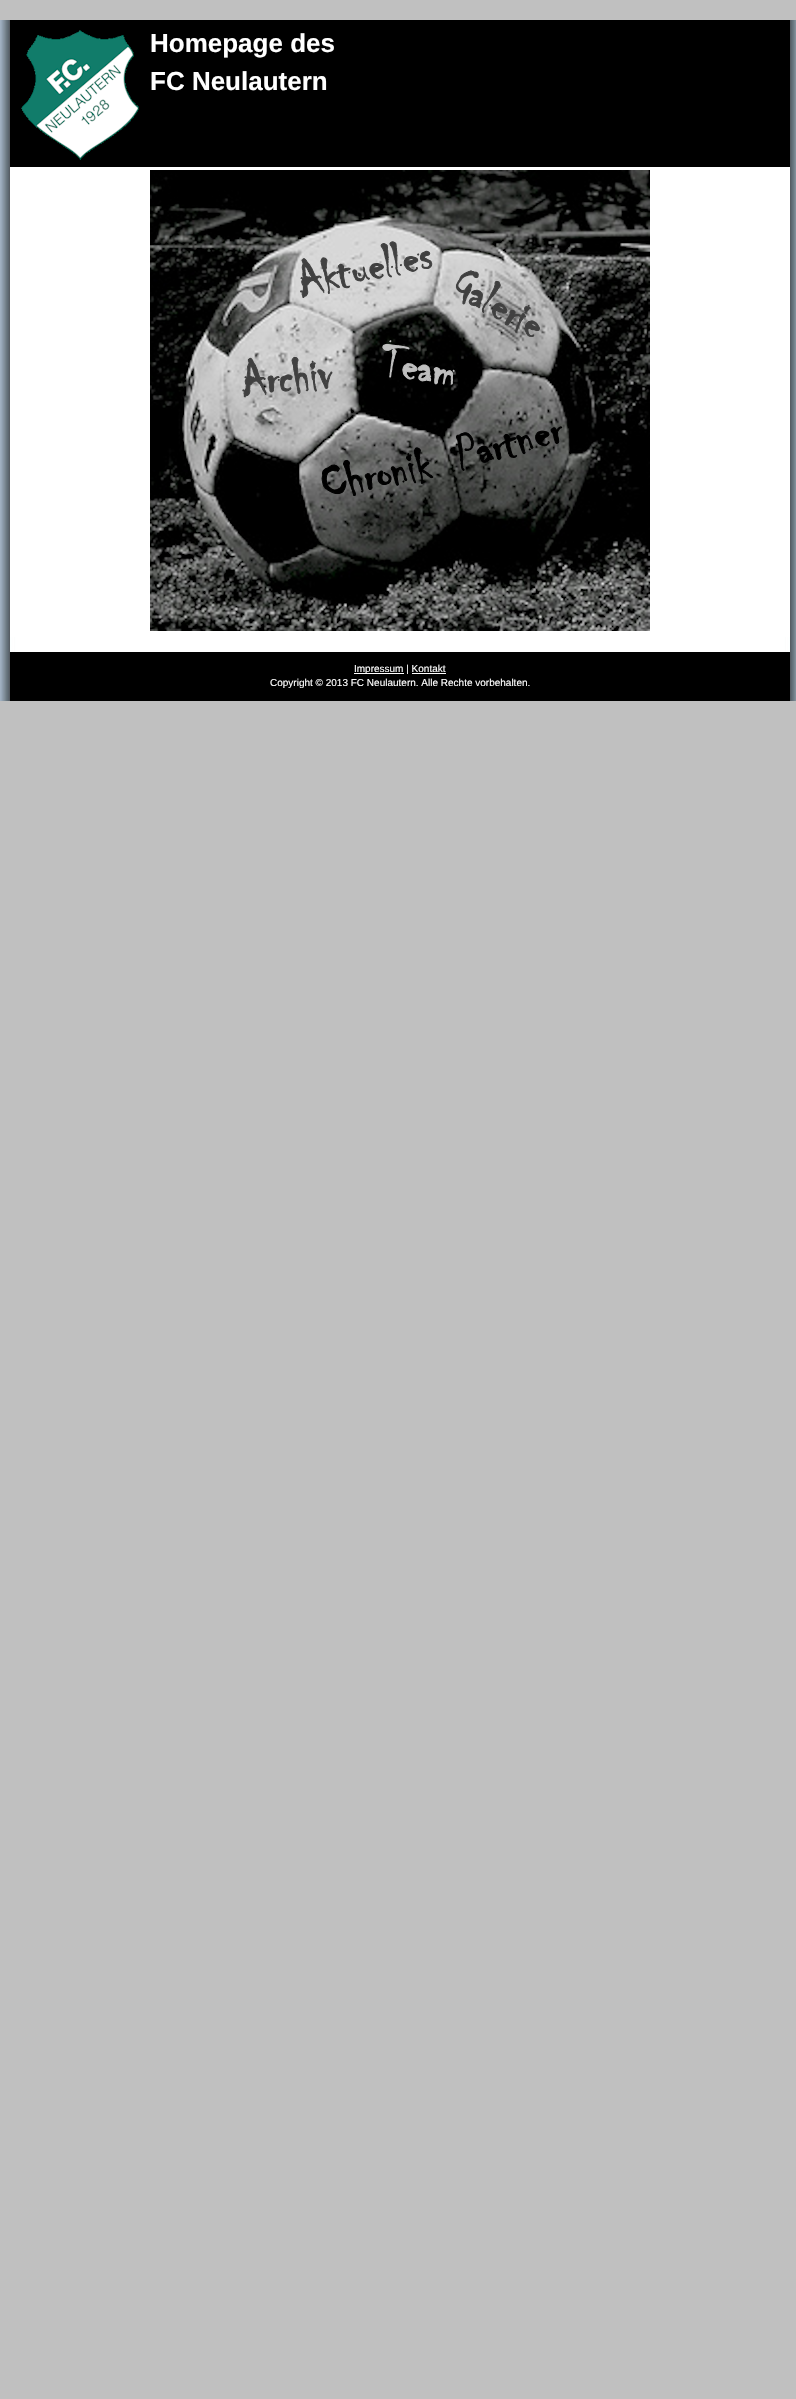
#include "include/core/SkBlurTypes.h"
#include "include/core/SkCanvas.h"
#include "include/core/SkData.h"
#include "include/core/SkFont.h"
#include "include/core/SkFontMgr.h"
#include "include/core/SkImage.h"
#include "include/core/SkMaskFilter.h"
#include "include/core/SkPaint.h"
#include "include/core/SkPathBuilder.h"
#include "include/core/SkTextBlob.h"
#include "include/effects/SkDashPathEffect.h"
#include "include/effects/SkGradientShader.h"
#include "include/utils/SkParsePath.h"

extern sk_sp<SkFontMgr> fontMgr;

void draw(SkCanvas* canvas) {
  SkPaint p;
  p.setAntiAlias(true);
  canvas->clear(SkColorSetRGB(192, 192, 192));
  canvas->drawImageRect(SkImages::DeferredFromEncodedData(SkData::MakeFromFileName("images/1.png")), SkRect::MakeLTRB(0, 20, 796, 701), SkSamplingOptions());
  p.setColor(SK_ColorBLACK);
  canvas->drawRect(SkRect::MakeLTRB(10, 20, 790, 167), p);
  canvas->drawImageRect(SkImages::DeferredFromEncodedData(SkData::MakeFromFileName("images/2.png")), SkRect::MakeLTRB(21, 30, 139, 160), SkSamplingOptions());
  p.setColor(SK_ColorWHITE);
  canvas->drawRect(SkRect::MakeLTRB(10, 167, 790, 637), p);
  canvas->drawImageRect(SkImages::DeferredFromEncodedData(SkData::MakeFromFileName("images/3.png")), SkRect::MakeLTRB(150, 170, 650, 631), SkSamplingOptions());
  p.setColor(SK_ColorBLACK);
  canvas->drawRect(SkRect::MakeLTRB(10, 652, 790, 701), p);
  p.setColor(SK_ColorWHITE);
  canvas->drawRect(SkRect::MakeLTRB(354, 673, 404, 674), p);
  canvas->drawRect(SkRect::MakeLTRB(412, 673, 446, 674), p);
  SkFont font1(fontMgr->matchFamilyStyle("Liberation Sans", SkFontStyle::Bold()), 26);
  font1.setSubpixel(true);
  canvas->drawString("Homepage des", 150, 52, font1, p);
  canvas->drawString("FC Neulautern", 150, 90, font1, p);
  SkFont font2(fontMgr->matchFamilyStyle("Liberation Sans", SkFontStyle::Normal()), 10);
  font2.setSubpixel(true);
  canvas->drawString("Impressum | Kontakt", 354, 672, font2, p);
  canvas->drawString("Copyright © 2013 FC Neulautern. Alle Rechte vorbehalten.", 270, 686, font2, p);
}
